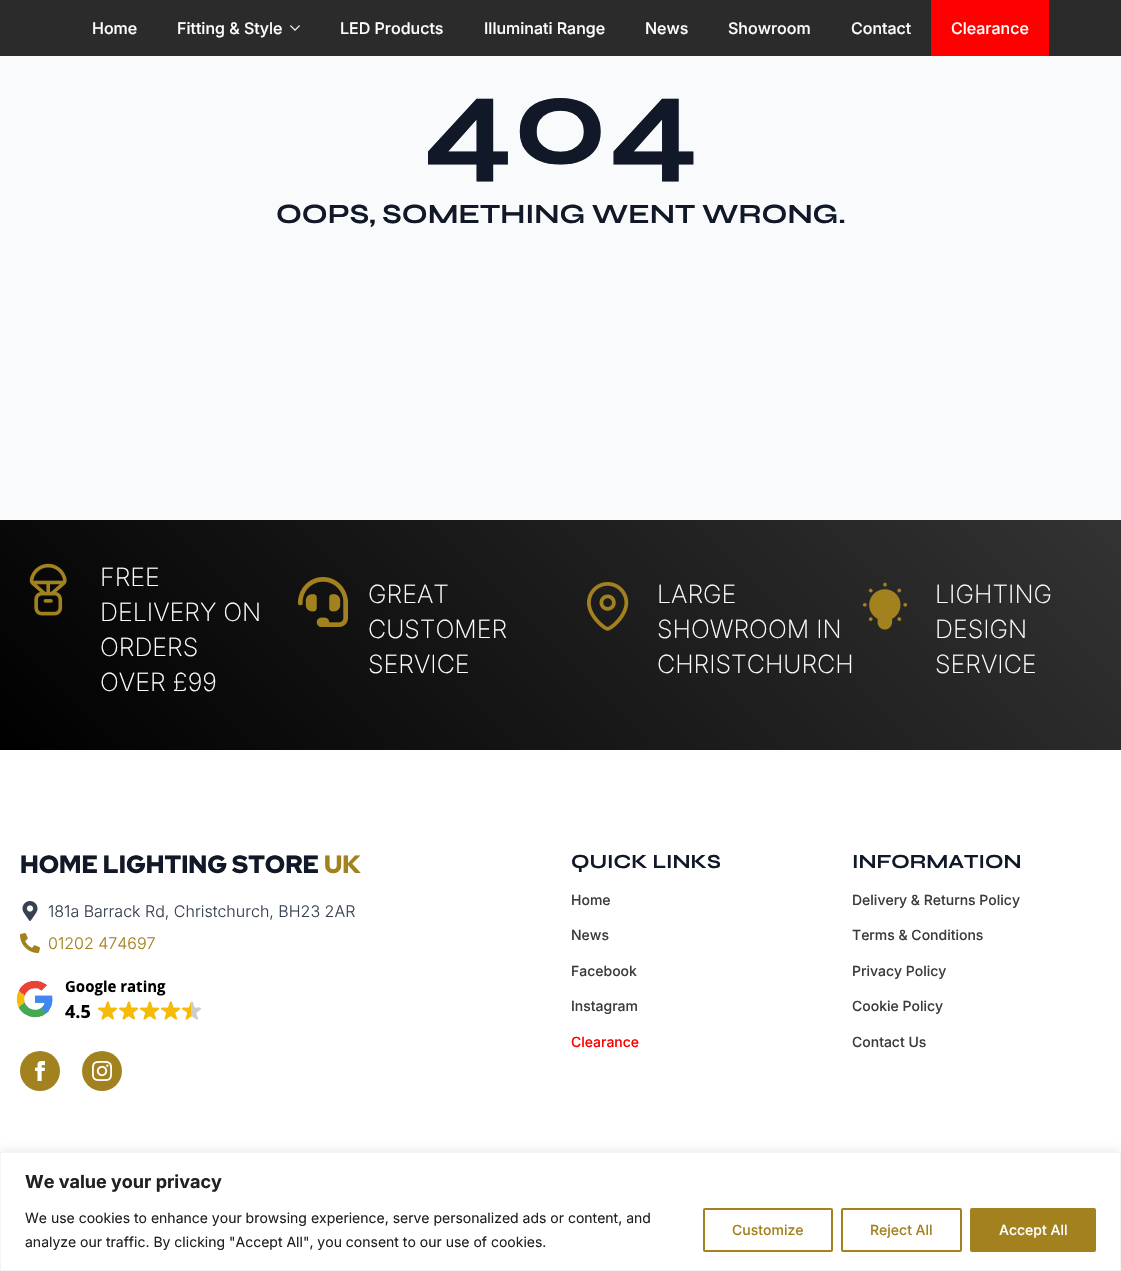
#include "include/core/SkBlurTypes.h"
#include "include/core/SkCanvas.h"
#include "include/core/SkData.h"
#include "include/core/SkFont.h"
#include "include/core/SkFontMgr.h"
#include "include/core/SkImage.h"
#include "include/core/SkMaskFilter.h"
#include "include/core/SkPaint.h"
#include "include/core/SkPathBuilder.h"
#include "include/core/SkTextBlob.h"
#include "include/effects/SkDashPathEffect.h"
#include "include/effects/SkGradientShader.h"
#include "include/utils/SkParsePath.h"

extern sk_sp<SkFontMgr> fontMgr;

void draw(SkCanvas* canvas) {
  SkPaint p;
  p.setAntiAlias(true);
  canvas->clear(SkColorSetRGB(249, 250, 251));
  p.setColor(SkColorSetRGB(43, 43, 43));
  canvas->drawRect(SkRect::MakeLTRB(0, 0, 1121, 56), p);
  canvas->drawImageRect(SkImages::DeferredFromEncodedData(SkData::MakeFromFileName("images/1.png")), SkRect::MakeLTRB(290, 25, 300, 31), SkSamplingOptions());
  p.setColor(SkColorSetRGB(254, 0, 0));
  canvas->drawRect(SkRect::MakeLTRB(931, 0, 1049, 56), p);
  {
    const SkColor colors[] = {SK_ColorBLACK, SkColorSetRGB(51, 51, 51)};
    const float stops[] = {0, 1};
    const SkPoint ends[] = {{223, 973}, {898, 297}};
    p.setShader(SkGradientShader::MakeLinear(ends, colors, stops, 2, SkTileMode::kClamp));
    p.setAlpha(255);
  }
  canvas->drawRect(SkRect::MakeLTRB(0, 520, 1121, 750), p);
  canvas->drawImageRect(SkImages::DeferredFromEncodedData(SkData::MakeFromFileName("images/2.png")), SkRect::MakeLTRB(29, 563, 67, 616), SkSamplingOptions());
  canvas->drawImageRect(SkImages::DeferredFromEncodedData(SkData::MakeFromFileName("images/3.png")), SkRect::MakeLTRB(298, 577, 348, 627), SkSamplingOptions());
  canvas->drawImageRect(SkImages::DeferredFromEncodedData(SkData::MakeFromFileName("images/4.png")), SkRect::MakeLTRB(587, 582, 629, 631), SkSamplingOptions());
  canvas->drawImageRect(SkImages::DeferredFromEncodedData(SkData::MakeFromFileName("images/5.png")), SkRect::MakeLTRB(862, 582, 908, 630), SkSamplingOptions());
  p.setShader(nullptr);
  p.setColor(SK_ColorWHITE);
  canvas->drawRect(SkRect::MakeLTRB(0, 750, 1121, 1152), p);
  canvas->drawImageRect(SkImages::DeferredFromEncodedData(SkData::MakeFromFileName("images/6.png")), SkRect::MakeLTRB(22, 901, 38, 921), SkSamplingOptions());
  canvas->drawImageRect(SkImages::DeferredFromEncodedData(SkData::MakeFromFileName("images/7.png")), SkRect::MakeLTRB(20, 933, 40, 953), SkSamplingOptions());
  canvas->drawImageRect(SkImages::DeferredFromEncodedData(SkData::MakeFromFileName("images/8.png")), SkRect::MakeLTRB(16, 980, 202, 1020), SkSamplingOptions());
  p.setColor(SkColorSetRGB(162, 129, 31));
  canvas->drawCircle(40, 1071, 20, p);
  canvas->drawImageRect(SkImages::DeferredFromEncodedData(SkData::MakeFromFileName("images/9.png")), SkRect::MakeLTRB(35, 1061, 45, 1081), SkSamplingOptions());
  canvas->drawCircle(102, 1071, 20, p);
  canvas->drawImageRect(SkImages::DeferredFromEncodedData(SkData::MakeFromFileName("images/10.png")), SkRect::MakeLTRB(92, 1061, 112, 1081), SkSamplingOptions());
  p.setColor(SkColorSetARGB(77, 172, 171, 171));
  p.setMaskFilter(SkMaskFilter::MakeBlur(kNormal_SkBlurStyle, 5));
  canvas->drawRect(SkRect::MakeLTRB(0, 1151, 1121, 1270), p);
  p.setMaskFilter(nullptr);
  p.setColor(SK_ColorWHITE);
  canvas->drawRect(SkRect::MakeLTRB(0.5f, 1152.5f, 1120.5f, 1270.5f), p);
  p.setStyle(SkPaint::kStroke_Style);
  p.setStrokeWidth(1);
  p.setColor(SkColorSetRGB(244, 244, 244));
  canvas->drawRect(SkRect::MakeLTRB(0.5f, 1152.5f, 1120.5f, 1270.5f), p);
  p.setStrokeWidth(2);
  p.setColor(SkColorSetRGB(162, 129, 30));
  canvas->drawRoundRect(SkRect::MakeLTRB(704, 1209, 832, 1251), 1, 1, p);
  canvas->drawRoundRect(SkRect::MakeLTRB(842, 1209, 961, 1251), 1, 1, p);
  p.setStyle(SkPaint::kFill_Style);
  canvas->drawRoundRect(SkRect::MakeLTRB(971, 1209, 1095, 1251), 1, 1, p);
  p.setStyle(SkPaint::kStroke_Style);
  canvas->drawRoundRect(SkRect::MakeLTRB(971, 1209, 1095, 1251), 1, 1, p);
  SkFont font1(fontMgr->matchFamilyStyle("Inter", SkFontStyle(500, SkFontStyle::kNormal_Width, SkFontStyle::kUpright_Slant)), 16);
  font1.setSubpixel(true);
  p.setStyle(SkPaint::kFill_Style);
  p.setColor(SK_ColorWHITE);
  canvas->drawString("Home", 92, 34, font1, p);
  canvas->drawString("Fitting & Style", 177, 34, font1, p);
  canvas->drawString("LED Products", 340, 34, font1, p);
  canvas->drawString("Illuminati Range", 484, 34, font1, p);
  canvas->drawString("News", 645, 34, font1, p);
  canvas->drawString("Showroom", 728, 34, font1, p);
  canvas->drawString("Contact", 851, 34, font1, p);
  canvas->drawString("Clearance", 951, 34, font1, p);
  SkFont font2(fontMgr->matchFamilyStyle("Syne", SkFontStyle::Bold()), 128);
  font2.setSubpixel(true);
  p.setColor(SkColorSetRGB(17, 24, 39));
  canvas->drawString("404", 422, 163, font2, p);
  SkFont font3(fontMgr->matchFamilyStyle("Syne", SkFontStyle::Bold()), 28);
  font3.setSubpixel(true);
  canvas->drawString("OOPS, SOMETHING WENT WRONG.", 276, 223, font3, p);
  SkFont font4(fontMgr->matchFamilyStyle("Inter", SkFontStyle(200, SkFontStyle::kNormal_Width, SkFontStyle::kUpright_Slant)), 25);
  font4.setSubpixel(true);
  p.setColor(SK_ColorWHITE);
  canvas->drawString("FREE", 100, 586, font4, p);
  canvas->drawString("DELIVERY ON", 100, 621, font4, p);
  canvas->drawString("ORDERS", 100, 656, font4, p);
  canvas->drawString("OVER £99", 100, 691, font4, p);
  canvas->drawString("GREAT", 368, 603, font4, p);
  canvas->drawString("CUSTOMER", 368, 638, font4, p);
  canvas->drawString("SERVICE", 368, 673, font4, p);
  canvas->drawString("LARGE", 657, 603, font4, p);
  canvas->drawString("SHOWROOM IN", 657, 638, font4, p);
  canvas->drawString("CHRISTCHURCH", 657, 673, font4, p);
  canvas->drawString("LIGHTING", 935, 603, font4, p);
  canvas->drawString("DESIGN", 935, 638, font4, p);
  canvas->drawString("SERVICE", 935, 673, font4, p);
  SkFont font5(fontMgr->matchFamilyStyle("Red Hat Display", SkFontStyle(900, SkFontStyle::kNormal_Width, SkFontStyle::kUpright_Slant)), 25);
  font5.setSubpixel(true);
  p.setColor(SkColorSetRGB(17, 24, 39));
  canvas->drawString("HOME LIGHTING STORE", 20, 873, font5, p);
  p.setColor(SkColorSetRGB(162, 129, 31));
  canvas->drawString("UK", 324, 873, font5, p);
  SkFont font6(fontMgr->matchFamilyStyle("Inter", SkFontStyle(300, SkFontStyle::kNormal_Width, SkFontStyle::kUpright_Slant)), 16);
  font6.setSubpixel(true);
  p.setColor(SkColorSetRGB(55, 65, 81));
  canvas->drawString("181a Barrack Rd, Christchurch, BH23 2AR", 48, 917, font6, p);
  p.setColor(SkColorSetRGB(162, 129, 31));
  canvas->drawString("01202 474697", 48, 949, font6, p);
  SkFont font7(fontMgr->matchFamilyStyle("Syne", SkFontStyle::Bold()), 20);
  font7.setSubpixel(true);
  p.setColor(SkColorSetRGB(17, 24, 39));
  canvas->drawString("QUICK LINKS", 571, 868, font7, p);
  SkFont font8(fontMgr->matchFamilyStyle("Inter", SkFontStyle(500, SkFontStyle::kNormal_Width, SkFontStyle::kUpright_Slant)), 14);
  font8.setSubpixel(true);
  p.setColor(SkColorSetRGB(60, 60, 60));
  canvas->drawString("Home", 571, 905, font8, p);
  canvas->drawString("News", 571, 940, font8, p);
  canvas->drawString("Facebook", 571, 976, font8, p);
  canvas->drawString("Instagram", 571, 1011, font8, p);
  p.setColor(SkColorSetRGB(254, 0, 0));
  canvas->drawString("Clearance", 571, 1047, font8, p);
  p.setColor(SkColorSetRGB(17, 24, 39));
  canvas->drawString("INFORMATION", 852, 868, font7, p);
  p.setColor(SkColorSetRGB(60, 60, 60));
  canvas->drawString("Delivery & Returns Policy", 852, 905, font8, p);
  canvas->drawString("Terms & Conditions", 852, 940, font8, p);
  canvas->drawString("Privacy Policy", 852, 976, font8, p);
  canvas->drawString("Cookie Policy", 852, 1011, font8, p);
  canvas->drawString("Contact Us", 852, 1047, font8, p);
  SkFont font9(fontMgr->matchFamilyStyle("Inter", SkFontStyle::Bold()), 18);
  font9.setSubpixel(true);
  p.setColor(SkColorSetRGB(33, 33, 33));
  canvas->drawString("We value your privacy", 25, 1188, font9, p);
  SkFont font10(fontMgr->matchFamilyStyle("Inter", SkFontStyle::Normal()), 14);
  font10.setSubpixel(true);
  canvas->drawString("We use cookies to enhance your browsing experience, serve personalized ads or content, and", 25, 1223, font10, p);
  canvas->drawString("analyze our traffic. By clicking \"Accept All\", you consent to our use of cookies.", 25, 1247, font10, p);
  p.setColor(SkColorSetRGB(162, 129, 31));
  canvas->drawString("Customize", 732, 1235, font8, p);
  canvas->drawString("Reject All", 870, 1235, font8, p);
  p.setColor(SK_ColorWHITE);
  canvas->drawString("Accept All", 999, 1235, font8, p);
}
